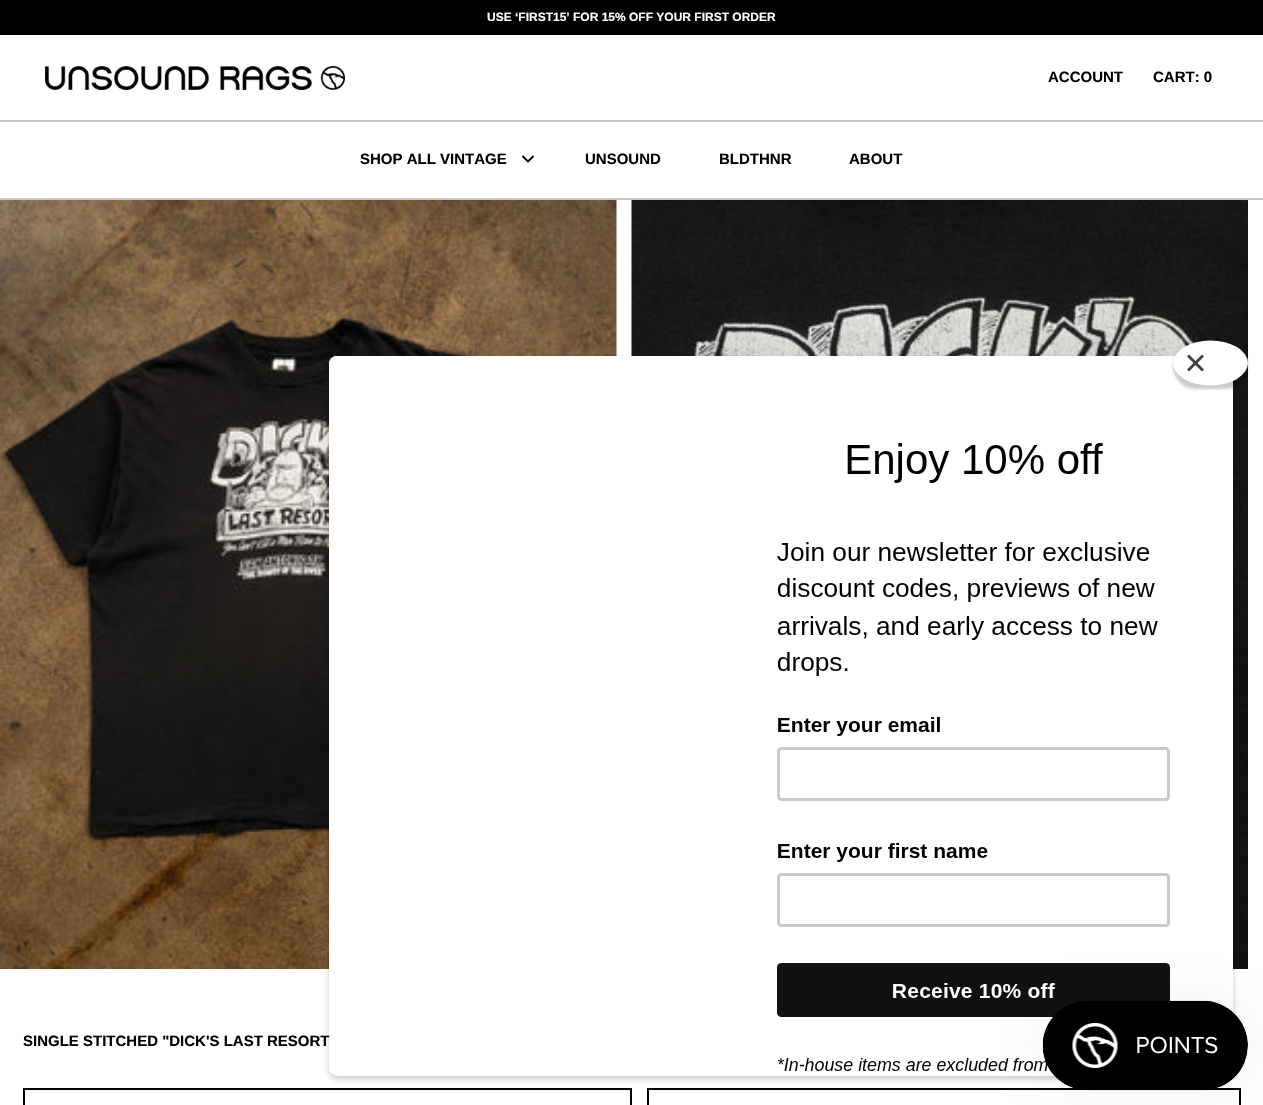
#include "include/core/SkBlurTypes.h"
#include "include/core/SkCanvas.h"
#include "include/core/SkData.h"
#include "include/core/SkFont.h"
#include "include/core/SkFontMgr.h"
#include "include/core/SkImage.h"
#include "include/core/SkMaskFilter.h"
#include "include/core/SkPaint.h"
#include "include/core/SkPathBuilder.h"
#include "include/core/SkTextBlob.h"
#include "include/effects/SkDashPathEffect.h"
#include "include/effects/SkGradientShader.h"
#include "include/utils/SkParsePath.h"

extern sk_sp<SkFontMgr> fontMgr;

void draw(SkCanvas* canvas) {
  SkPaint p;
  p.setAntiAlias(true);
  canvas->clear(SK_ColorWHITE);
  p.setColor(SK_ColorBLACK);
  canvas->drawRect(SkRect::MakeLTRB(0, 0, 1263, 35), p);
  p.setColor(SkColorSetRGB(198, 198, 198));
  canvas->drawRect(SkRect::MakeLTRB(0, 120, 1263, 122), p);
  canvas->drawImageRect(SkImages::DeferredFromEncodedData(SkData::MakeFromFileName("images/1.png")), SkRect::MakeLTRB(45, 66, 345, 90), SkSamplingOptions());
  canvas->drawRect(SkRect::MakeLTRB(0, 198, 1263, 200), p);
  p.setStyle(SkPaint::kStroke_Style);
  p.setStrokeWidth(1.8f);
  p.setStrokeCap(SkPaint::kRound_Cap);
  p.setStrokeJoin(SkPaint::kRound_Join);
  p.setColor(SK_ColorBLACK);
  canvas->drawPath(SkPathBuilder().moveTo(523, 156.5f).lineTo(528, 161.5f).lineTo(533, 156.5f).detach(), p);
  canvas->drawImageRect(SkImages::DeferredFromEncodedData(SkData::MakeFromFileName("images/3.png")), SkRect::MakeLTRB(0, 200, 617, 969), SkSamplingOptions());
  canvas->drawImageRect(SkImages::DeferredFromEncodedData(SkData::MakeFromFileName("images/4.png")), SkRect::MakeLTRB(631, 200, 1248, 969), SkSamplingOptions());
  p.setStrokeWidth(2);
  p.setStrokeCap(SkPaint::kButt_Cap);
  p.setStrokeJoin(SkPaint::kMiter_Join);
  canvas->drawRect(SkRect::MakeLTRB(24, 1089, 631, 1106), p);
  canvas->drawRect(SkRect::MakeLTRB(648, 1089, 1240, 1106), p);
  p.setStyle(SkPaint::kFill_Style);
  p.setColor(SkColorSetARGB(51, 0, 0, 0));
  p.setMaskFilter(SkMaskFilter::MakeBlur(kNormal_SkBlurStyle, 3));
  canvas->drawRoundRect(SkRect::MakeLTRB(329, 359, 1233, 1079), 9, 9, p);
  p.setMaskFilter(nullptr);
  p.setColor(SK_ColorWHITE);
  canvas->drawRoundRect(SkRect::MakeLTRB(329, 356, 1233, 1076), 9, 9, p);
  canvas->drawImageRect(SkImages::DeferredFromEncodedData(SkData::MakeFromFileName("images/2.png")), SkRect::MakeLTRB(329, 356, 1233, 1075), SkSamplingOptions());
  p.setColor(SkColorSetARGB(51, 0, 0, 0));
  p.setMaskFilter(SkMaskFilter::MakeBlur(kNormal_SkBlurStyle, 1.5f));
  canvas->drawRoundRect(SkRect::MakeLTRB(1173, 344, 1248, 389), 22.5f, 22.5f, p);
  p.setMaskFilter(nullptr);
  p.setColor(SK_ColorWHITE);
  canvas->drawOval(SkRect::MakeLTRB(1173, 340.5f, 1248, 385.5f), p);
  p.setColor(SkColorSetRGB(65, 65, 65));
  canvas->drawPath(SkPathBuilder().moveTo(1202, 354.5f).lineTo(1204, 356.5f).lineTo(1189, 371.5f).lineTo(1187, 369.5f).close().detach(), p);
  canvas->drawPath(SkPathBuilder().moveTo(1187, 356.5f).lineTo(1189, 354.5f).lineTo(1204, 369.5f).lineTo(1202, 371.5f).close().detach(), p);
  p.setColor(SkColorSetARGB(13, 0, 0, 0));
  p.setMaskFilter(SkMaskFilter::MakeBlur(kNormal_SkBlurStyle, 19));
  canvas->drawRoundRect(SkRect::MakeLTRB(1043, 1001, 1248, 1091), 45, 45, p);
  p.setMaskFilter(nullptr);
  canvas->drawImageRect(SkImages::DeferredFromEncodedData(SkData::MakeFromFileName("images/5.png")), SkRect::MakeLTRB(1042, 1000, 1248, 1091), SkSamplingOptions());
  SkFont font1(fontMgr->matchFamilyStyle("Liberation Sans", SkFontStyle::Bold()), 12);
  font1.setSubpixel(true);
  p.setColor(SK_ColorWHITE);
  canvas->drawString("USE ‘FIRST15’ FOR 15% OFF YOUR FIRST ORDER", 487, 21, font1, p);
  SkFont font2(fontMgr->matchFamilyStyle("Liberation Sans", SkFontStyle::Bold()), 15);
  font2.setSubpixel(true);
  p.setColor(SK_ColorBLACK);
  canvas->drawString("ACCOUNT", 1048, 82, font2, p);
  canvas->drawString("CART: 0", 1153, 82, font2, p);
  canvas->drawString("SHOP ALL VINTAGE", 360, 164, font2, p);
  canvas->drawString("UNSOUND", 585, 164, font2, p);
  canvas->drawString("BLDTHNR", 719, 164, font2, p);
  canvas->drawString("ABOUT", 849, 164, font2, p);
  canvas->drawString("SINGLE STITCHED \"DICK'S LAST RESORT", 23, 1046, font2, p);
}
